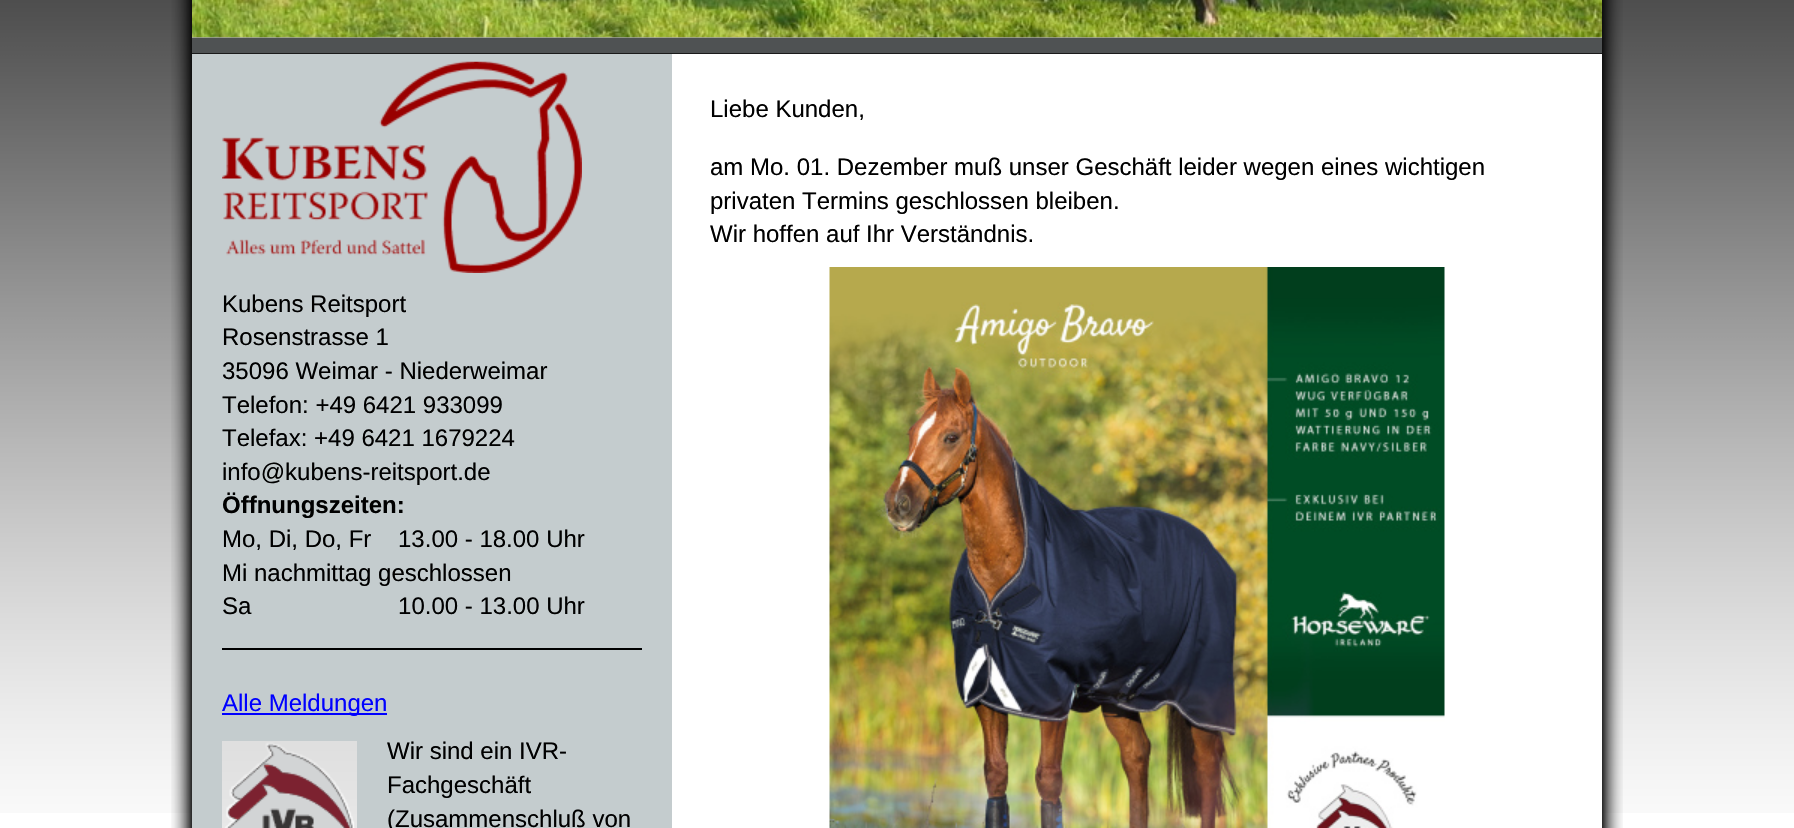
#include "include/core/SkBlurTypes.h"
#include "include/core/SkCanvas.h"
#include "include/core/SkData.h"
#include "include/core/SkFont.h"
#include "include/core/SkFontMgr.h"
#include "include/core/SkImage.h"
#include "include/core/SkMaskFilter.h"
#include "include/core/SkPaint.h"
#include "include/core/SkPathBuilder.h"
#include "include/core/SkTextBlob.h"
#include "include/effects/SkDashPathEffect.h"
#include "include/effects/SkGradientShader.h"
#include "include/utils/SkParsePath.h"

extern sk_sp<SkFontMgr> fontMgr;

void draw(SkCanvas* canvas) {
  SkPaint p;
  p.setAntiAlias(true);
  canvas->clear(SK_ColorWHITE);
  canvas->drawImageRect(SkImages::DeferredFromEncodedData(SkData::MakeFromFileName("images/1.png")), SkRect::MakeLTRB(0, 0, 1794, 813), SkSamplingOptions());
  canvas->drawImageRect(SkImages::DeferredFromEncodedData(SkData::MakeFromFileName("images/2.png")), SkRect::MakeLTRB(171, 0, 192, 828), SkSamplingOptions());
  p.setColor(SkColorSetRGB(160, 160, 160));
  canvas->drawRect(SkRect::MakeLTRB(192, 37, 1602, 38), p);
  canvas->drawImageRect(SkImages::DeferredFromEncodedData(SkData::MakeFromFileName("images/3.png")), SkRect::MakeLTRB(192, 0, 1602, 38), SkSamplingOptions());
  canvas->drawImageRect(SkImages::DeferredFromEncodedData(SkData::MakeFromFileName("images/4.png")), SkRect::MakeLTRB(1602, 0, 1623, 828), SkSamplingOptions());
  p.setColor(SkColorSetRGB(196, 204, 206));
  canvas->drawRect(SkRect::MakeLTRB(192, 38, 1602, 53), p);
  p.setColor(SkColorSetARGB(153, 0, 0, 0));
  canvas->drawRect(SkRect::MakeLTRB(192, 38, 1602, 53), p);
  p.setColor(SkColorSetRGB(26, 26, 26));
  canvas->drawRect(SkRect::MakeLTRB(192, 53, 1602, 54), p);
  p.setColor(SK_ColorWHITE);
  canvas->drawRect(SkRect::MakeLTRB(672, 54, 1602, 813), p);
  canvas->drawImageRect(SkImages::DeferredFromEncodedData(SkData::MakeFromFileName("images/5.png")), SkRect::MakeLTRB(829, 267, 1445, 828), SkSamplingOptions());
  p.setColor(SkColorSetRGB(196, 204, 206));
  canvas->drawRect(SkRect::MakeLTRB(192, 54, 672, 828), p);
  canvas->drawImageRect(SkImages::DeferredFromEncodedData(SkData::MakeFromFileName("images/6.png")), SkRect::MakeLTRB(222, 61, 582, 273), SkSamplingOptions());
  p.setColor(SK_ColorBLACK);
  canvas->drawRect(SkRect::MakeLTRB(222, 648, 642, 650), p);
  p.setColor(SkColorSetRGB(0, 0, 255));
  canvas->drawRect(SkRect::MakeLTRB(222, 713, 387, 715), p);
  canvas->drawImageRect(SkImages::DeferredFromEncodedData(SkData::MakeFromFileName("images/7.png")), SkRect::MakeLTRB(222, 741, 357, 828), SkSamplingOptions());
  SkFont font1(fontMgr->matchFamilyStyle("Liberation Sans", SkFontStyle::Normal()), 24);
  font1.setSubpixel(true);
  p.setColor(SK_ColorBLACK);
  canvas->drawString("Liebe Kunden,", 710, 117, font1, p);
  canvas->drawString("am Mo. 01. Dezember muß unser Geschäft leider wegen eines wichtigen", 710, 175, font1, p);
  canvas->drawString("privaten Termins geschlossen bleiben.", 710, 209, font1, p);
  canvas->drawString("Wir hoffen auf Ihr Verständnis.", 710, 242, font1, p);
  canvas->drawString("Kubens Reitsport", 222, 312, font1, p);
  canvas->drawString("Rosenstrasse 1", 222, 345, font1, p);
  canvas->drawString("35096 Weimar - Niederweimar", 222, 379, font1, p);
  canvas->drawString("Telefon: +49 6421 933099", 222, 413, font1, p);
  canvas->drawString("Telefax: +49 6421 1679224", 222, 446, font1, p);
  canvas->drawString("info@kubens-reitsport.de", 222, 480, font1, p);
  SkFont font2(fontMgr->matchFamilyStyle("Liberation Sans", SkFontStyle::Bold()), 24);
  font2.setSubpixel(true);
  canvas->drawString("Öffnungszeiten:", 222, 513, font2, p);
  canvas->drawString("Mo, Di, Do, Fr    13.00 - 18.00 Uhr", 222, 547, font1, p);
  canvas->drawString("Mi nachmittag geschlossen", 222, 581, font1, p);
  canvas->drawString("Sa                      10.00 - 13.00 Uhr", 222, 614, font1, p);
  p.setColor(SkColorSetRGB(0, 0, 255));
  canvas->drawString("Alle Meldungen", 222, 711, font1, p);
  p.setColor(SK_ColorBLACK);
  canvas->drawString("Wir sind ein IVR-", 387, 759, font1, p);
  canvas->drawString("Fachgeschäft", 387, 793, font1, p);
  canvas->drawString("(Zusammenschluß von", 387, 827, font1, p);
}
